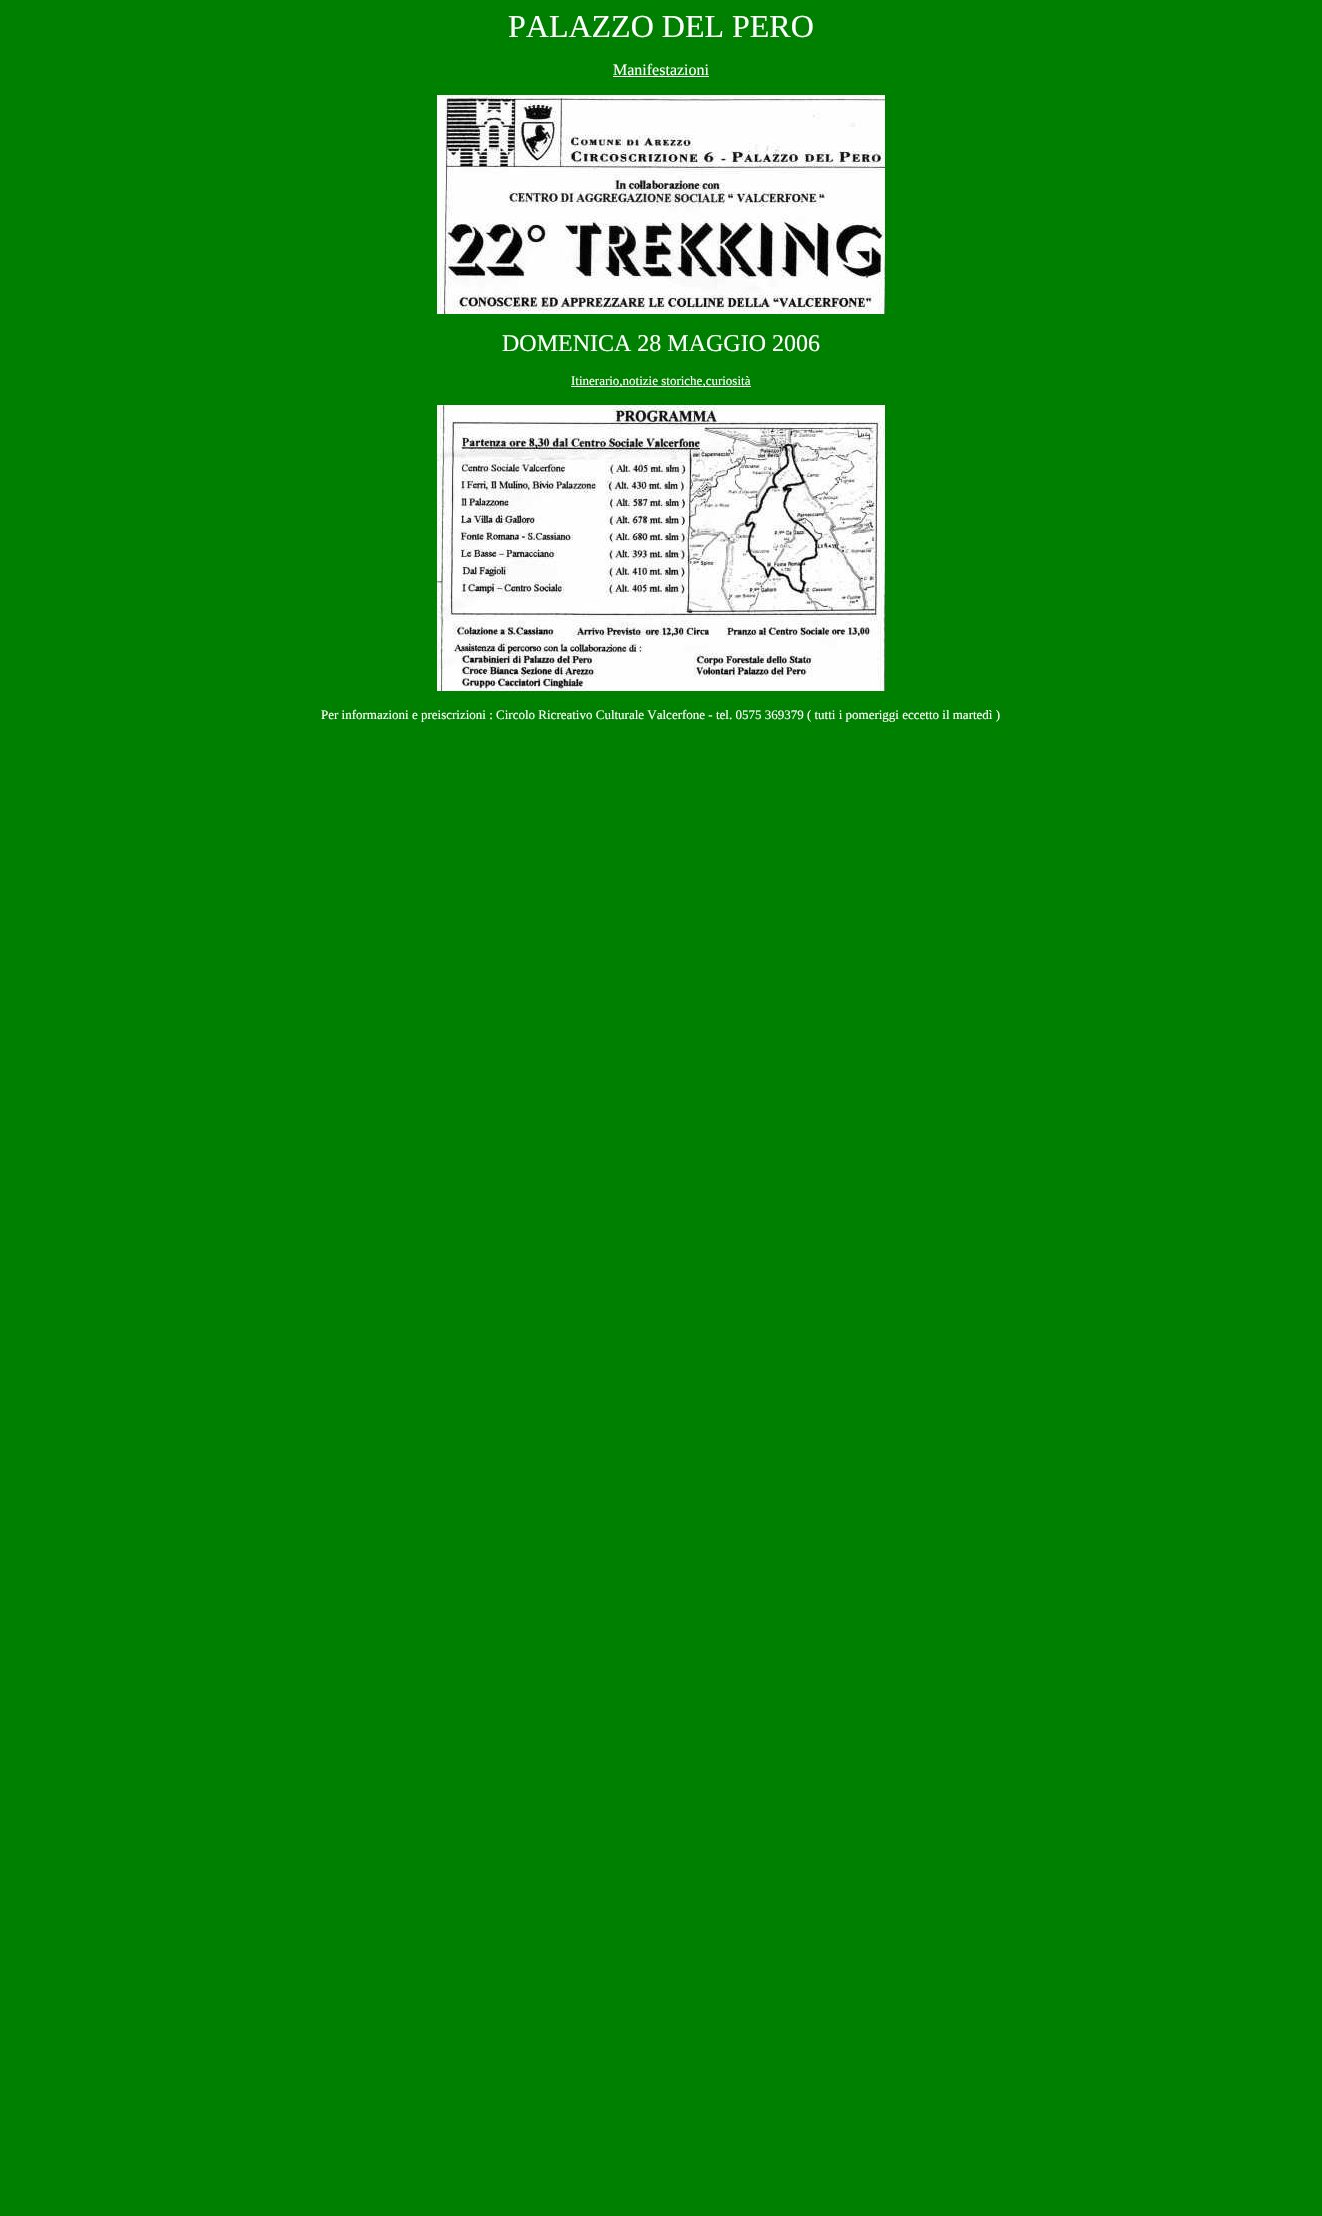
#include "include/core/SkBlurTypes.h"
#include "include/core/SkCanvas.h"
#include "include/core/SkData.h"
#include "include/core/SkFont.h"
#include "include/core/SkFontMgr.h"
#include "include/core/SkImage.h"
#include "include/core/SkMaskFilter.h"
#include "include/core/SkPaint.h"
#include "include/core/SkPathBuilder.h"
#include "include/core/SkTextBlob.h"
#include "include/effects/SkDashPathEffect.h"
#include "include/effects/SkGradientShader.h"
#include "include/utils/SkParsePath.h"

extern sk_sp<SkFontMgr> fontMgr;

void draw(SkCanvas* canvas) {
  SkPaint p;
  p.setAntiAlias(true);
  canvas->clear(SkColorSetRGB(0, 128, 0));
  p.setColor(SK_ColorWHITE);
  canvas->drawRect(SkRect::MakeLTRB(613, 76, 709, 77), p);
  canvas->drawImageRect(SkImages::DeferredFromEncodedData(SkData::MakeFromFileName("images/1.png")), SkRect::MakeLTRB(437, 95, 885, 314), SkSamplingOptions());
  canvas->drawRect(SkRect::MakeLTRB(571, 386, 751, 387), p);
  canvas->drawImageRect(SkImages::DeferredFromEncodedData(SkData::MakeFromFileName("images/2.png")), SkRect::MakeLTRB(437, 405, 885, 691), SkSamplingOptions());
  SkFont font1(fontMgr->matchFamilyStyle("Liberation Serif", SkFontStyle::Normal()), 32);
  font1.setSubpixel(true);
  canvas->drawString("PALAZZO DEL PERO", 508, 37, font1, p);
  SkFont font2(fontMgr->matchFamilyStyle("Liberation Serif", SkFontStyle::Normal()), 16);
  font2.setSubpixel(true);
  canvas->drawString("Manifestazioni", 613, 75, font2, p);
  SkFont font3(fontMgr->matchFamilyStyle("Liberation Serif", SkFontStyle::Normal()), 24);
  font3.setSubpixel(true);
  canvas->drawString("DOMENICA 28 MAGGIO 2006", 502, 351, font3, p);
  SkFont font4(fontMgr->matchFamilyStyle("Liberation Serif", SkFontStyle::Normal()), 13);
  font4.setSubpixel(true);
  canvas->drawString("Itinerario,notizie storiche,curiosità", 571, 385, font4, p);
  canvas->drawString("Per informazioni e preiscrizioni : Circolo Ricreativo Culturale Valcerfone - tel. 0575 369379 ( tutti i pomeriggi eccetto il martedì )", 321, 719, font4, p);
}
